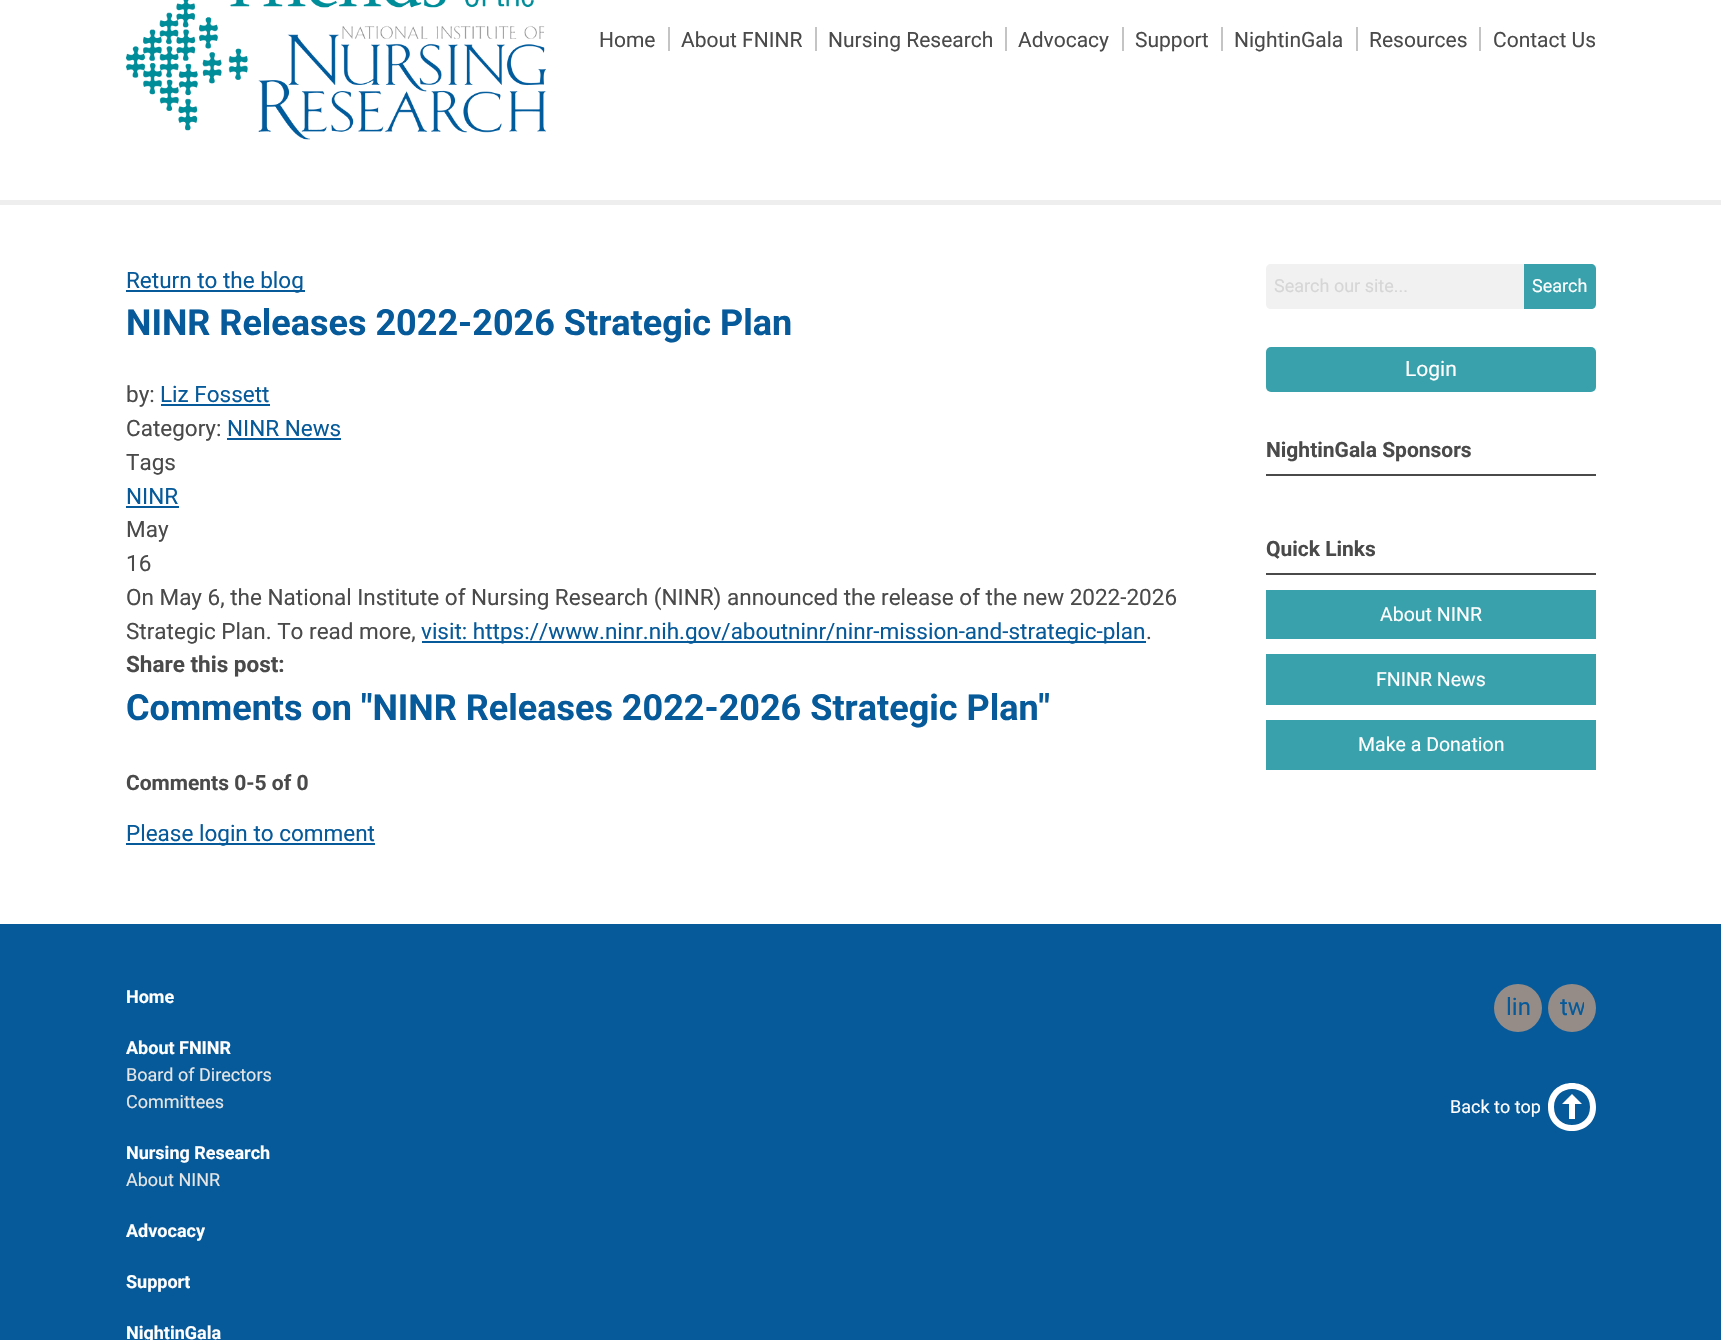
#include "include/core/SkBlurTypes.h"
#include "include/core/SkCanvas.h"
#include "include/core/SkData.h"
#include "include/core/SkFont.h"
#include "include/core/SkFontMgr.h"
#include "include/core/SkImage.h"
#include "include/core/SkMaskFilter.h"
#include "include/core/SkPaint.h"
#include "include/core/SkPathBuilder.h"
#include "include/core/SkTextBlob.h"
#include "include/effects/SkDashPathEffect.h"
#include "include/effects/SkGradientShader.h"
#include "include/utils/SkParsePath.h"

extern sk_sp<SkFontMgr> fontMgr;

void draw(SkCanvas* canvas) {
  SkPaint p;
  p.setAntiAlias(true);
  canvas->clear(SK_ColorWHITE);
  p.setColor(SkColorSetRGB(238, 238, 238));
  canvas->drawRect(SkRect::MakeLTRB(0, 200, 1721, 205), p);
  canvas->drawImageRect(SkImages::DeferredFromEncodedData(SkData::MakeFromFileName("images/1.png")), SkRect::MakeLTRB(126, 0, 546, 140), SkSamplingOptions());
  p.setColor(SkColorSetRGB(196, 196, 196));
  canvas->drawRect(SkRect::MakeLTRB(668, 27, 670, 51), p);
  canvas->drawRect(SkRect::MakeLTRB(815, 27, 817, 51), p);
  canvas->drawRect(SkRect::MakeLTRB(1005, 27, 1007, 51), p);
  canvas->drawRect(SkRect::MakeLTRB(1122, 27, 1124, 51), p);
  canvas->drawRect(SkRect::MakeLTRB(1221, 27, 1223, 51), p);
  canvas->drawRect(SkRect::MakeLTRB(1356, 27, 1358, 51), p);
  canvas->drawRect(SkRect::MakeLTRB(1479, 27, 1481, 51), p);
  p.setColor(SkColorSetRGB(7, 90, 154));
  canvas->drawRect(SkRect::MakeLTRB(126, 290, 305, 292), p);
  canvas->drawRect(SkRect::MakeLTRB(161, 404, 270, 406), p);
  canvas->drawRect(SkRect::MakeLTRB(227, 438, 341, 440), p);
  canvas->drawRect(SkRect::MakeLTRB(126, 506, 179, 508), p);
  canvas->drawRect(SkRect::MakeLTRB(422, 641, 1146, 643), p);
  canvas->drawRect(SkRect::MakeLTRB(126, 843, 375, 845), p);
  p.setColor(SkColorSetRGB(241, 241, 241));
  canvas->drawPath(SkPathBuilder().moveTo(1271, 264).lineTo(1524, 264).lineTo(1524, 309).lineTo(1271, 309).cubicTo(1268, 309, 1266, 307, 1266, 304).lineTo(1266, 269).cubicTo(1266, 266, 1268, 264, 1271, 264).close().detach(), p);
  p.setColor(SkColorSetRGB(57, 161, 171));
  canvas->drawPath(SkPathBuilder().moveTo(1524, 264).lineTo(1591, 264).cubicTo(1594, 264, 1596, 266, 1596, 269).lineTo(1596, 304).cubicTo(1596, 307, 1594, 309, 1591, 309).lineTo(1524, 309).close().detach(), p);
  canvas->drawRoundRect(SkRect::MakeLTRB(1266, 347, 1596, 392), 5, 5, p);
  p.setColor(SkColorSetRGB(74, 74, 74));
  canvas->drawRect(SkRect::MakeLTRB(1266, 474, 1596, 476), p);
  canvas->drawRect(SkRect::MakeLTRB(1266, 573, 1596, 575), p);
  p.setColor(SkColorSetRGB(57, 161, 171));
  canvas->drawRect(SkRect::MakeLTRB(1266, 590, 1596, 639), p);
  canvas->drawRect(SkRect::MakeLTRB(1266, 654, 1596, 705), p);
  canvas->drawRect(SkRect::MakeLTRB(1266, 720, 1596, 770), p);
  p.setColor(SkColorSetRGB(7, 90, 154));
  canvas->drawRect(SkRect::MakeLTRB(0, 924, 1721, 1340), p);
  p.setColor(SkColorSetRGB(149, 140, 135));
  canvas->drawCircle(1518, 1008, 24, p);
  canvas->drawCircle(1572, 1008, 24, p);
  p.setColor(SK_ColorWHITE);
  canvas->drawPath(SkPathBuilder().moveTo(1548, 1107).cubicTo(1548, 1139, 1596, 1139, 1596, 1107).cubicTo(1596, 1075, 1548, 1075, 1548, 1107).close().moveTo(1590, 1107).cubicTo(1590, 1131, 1554, 1131, 1554, 1107).cubicTo(1554, 1083, 1590, 1083, 1590, 1107).close().moveTo(1582, 1104).lineTo(1575, 1104).lineTo(1575, 1119).lineTo(1569, 1119).lineTo(1569, 1104).lineTo(1562, 1104).lineTo(1572, 1094).close().detach(), p);
  SkFont font1(fontMgr->matchFamilyStyle("Roboto", SkFontStyle::Normal()), 21);
  font1.setSubpixel(true);
  p.setColor(SkColorSetRGB(74, 74, 74));
  canvas->drawString("Home", 599, 47, font1, p);
  canvas->drawString("About FNINR", 681, 47, font1, p);
  canvas->drawString("Nursing Research", 828, 47, font1, p);
  canvas->drawString("Advocacy", 1018, 47, font1, p);
  canvas->drawString("Support", 1135, 47, font1, p);
  canvas->drawString("NightinGala", 1234, 47, font1, p);
  canvas->drawString("Resources", 1369, 47, font1, p);
  canvas->drawString("Contact Us", 1493, 47, font1, p);
  SkFont font2(fontMgr->matchFamilyStyle("Roboto", SkFontStyle::Normal()), 22.5f);
  font2.setSubpixel(true);
  p.setColor(SkColorSetRGB(7, 90, 154));
  canvas->drawString("Return to the blog", 126, 288, font2, p);
  SkFont font3(fontMgr->matchFamilyStyle("Roboto", SkFontStyle::Bold()), 36);
  font3.setSubpixel(true);
  canvas->drawString("NINR Releases 2022-2026 Strategic Plan", 126, 335, font3, p);
  p.setColor(SkColorSetRGB(74, 74, 74));
  canvas->drawString("by:", 126, 402, font2, p);
  p.setColor(SkColorSetRGB(7, 90, 154));
  canvas->drawString("Liz Fossett", 160, 402, font2, p);
  p.setColor(SkColorSetRGB(74, 74, 74));
  canvas->drawString("Category:", 126, 436, font2, p);
  p.setColor(SkColorSetRGB(7, 90, 154));
  canvas->drawString("NINR News", 227, 436, font2, p);
  p.setColor(SkColorSetRGB(74, 74, 74));
  canvas->drawString("Tags", 126, 470, font2, p);
  p.setColor(SkColorSetRGB(7, 90, 154));
  canvas->drawString("NINR", 126, 504, font2, p);
  p.setColor(SkColorSetRGB(74, 74, 74));
  canvas->drawString("May", 126, 537, font2, p);
  canvas->drawString("16", 126, 571, font2, p);
  canvas->drawString("On May 6, the National Institute of Nursing Research (NINR) announced the release of the new 2022-2026", 126, 605, font2, p);
  canvas->drawString("Strategic Plan. To read more,", 126, 639, font2, p);
  p.setColor(SkColorSetRGB(7, 90, 154));
  canvas->drawString("visit: https://www.ninr.nih.gov/aboutninr/ninr-mission-and-strategic-plan", 421, 639, font2, p);
  p.setColor(SkColorSetRGB(74, 74, 74));
  canvas->drawString(".", 1146, 639, font2, p);
  SkFont font4(fontMgr->matchFamilyStyle("Roboto", SkFontStyle::Bold()), 22.5f);
  font4.setSubpixel(true);
  canvas->drawString("Share this post:", 126, 672, font4, p);
  p.setColor(SkColorSetRGB(7, 90, 154));
  canvas->drawString("Comments on \"NINR Releases 2022-2026 Strategic Plan\"", 126, 720, font3, p);
  SkFont font5(fontMgr->matchFamilyStyle("Roboto", SkFontStyle::Bold()), 21);
  font5.setSubpixel(true);
  p.setColor(SkColorSetRGB(74, 74, 74));
  canvas->drawString("Comments 0-5 of 0", 126, 790, font5, p);
  p.setColor(SkColorSetRGB(7, 90, 154));
  canvas->drawString("Please login to comment", 126, 841, font2, p);
  SkFont font6(fontMgr->matchFamilyStyle("Roboto", SkFontStyle::Normal()), 18);
  font6.setSubpixel(true);
  p.setColor(SkColorSetRGB(214, 214, 214));
  canvas->drawString("Search our site...", 1274, 292, font6, p);
  p.setColor(SK_ColorWHITE);
  canvas->drawString("Search", 1532, 292, font6, p);
  canvas->drawString("Login", 1405, 376, font1, p);
  p.setColor(SkColorSetRGB(74, 74, 74));
  canvas->drawString("NightinGala Sponsors", 1266, 457, font5, p);
  canvas->drawString("Quick Links", 1266, 556, font5, p);
  SkFont font7(fontMgr->matchFamilyStyle("Roboto", SkFontStyle::Normal()), 19.5f);
  font7.setSubpixel(true);
  p.setColor(SK_ColorWHITE);
  canvas->drawString("About NINR", 1380, 621, font7, p);
  canvas->drawString("FNINR News", 1376, 686, font7, p);
  canvas->drawString("Make a Donation", 1358, 751, font7, p);
  SkFont font8(fontMgr->matchFamilyStyle("Roboto", SkFontStyle::Bold()), 18);
  font8.setSubpixel(true);
  canvas->drawString("Home", 126, 1003, font8, p);
  canvas->drawString("About FNINR", 126, 1054, font8, p);
  p.setColor(SkColorSetRGB(230, 230, 230));
  canvas->drawString("Board of Directors", 126, 1081, font6, p);
  canvas->drawString("Committees", 126, 1108, font6, p);
  p.setColor(SK_ColorWHITE);
  canvas->drawString("Nursing Research", 126, 1159, font8, p);
  p.setColor(SkColorSetRGB(230, 230, 230));
  canvas->drawString("About NINR", 126, 1186, font6, p);
  p.setColor(SK_ColorWHITE);
  canvas->drawString("Advocacy", 126, 1237, font8, p);
  canvas->drawString("Support", 126, 1288, font8, p);
  canvas->drawString("NightinGala", 126, 1339, font8, p);
  SkFont font9(fontMgr->matchFamilyStyle("Roboto", SkFontStyle::Normal()), 24);
  font9.setSubpixel(true);
  p.setColor(SkColorSetRGB(7, 90, 154));
  canvas->drawString("lin", 1506, 1015, font9, p);
  canvas->save();
  canvas->clipRect(SkRect::MakeLTRB(1560, 996, 1584, 1020));
  canvas->drawString("tw", 1560, 1015, font9, p);
  canvas->restore();
  p.setColor(SK_ColorWHITE);
  canvas->drawString("Back to top", 1450, 1113, font6, p);
}
